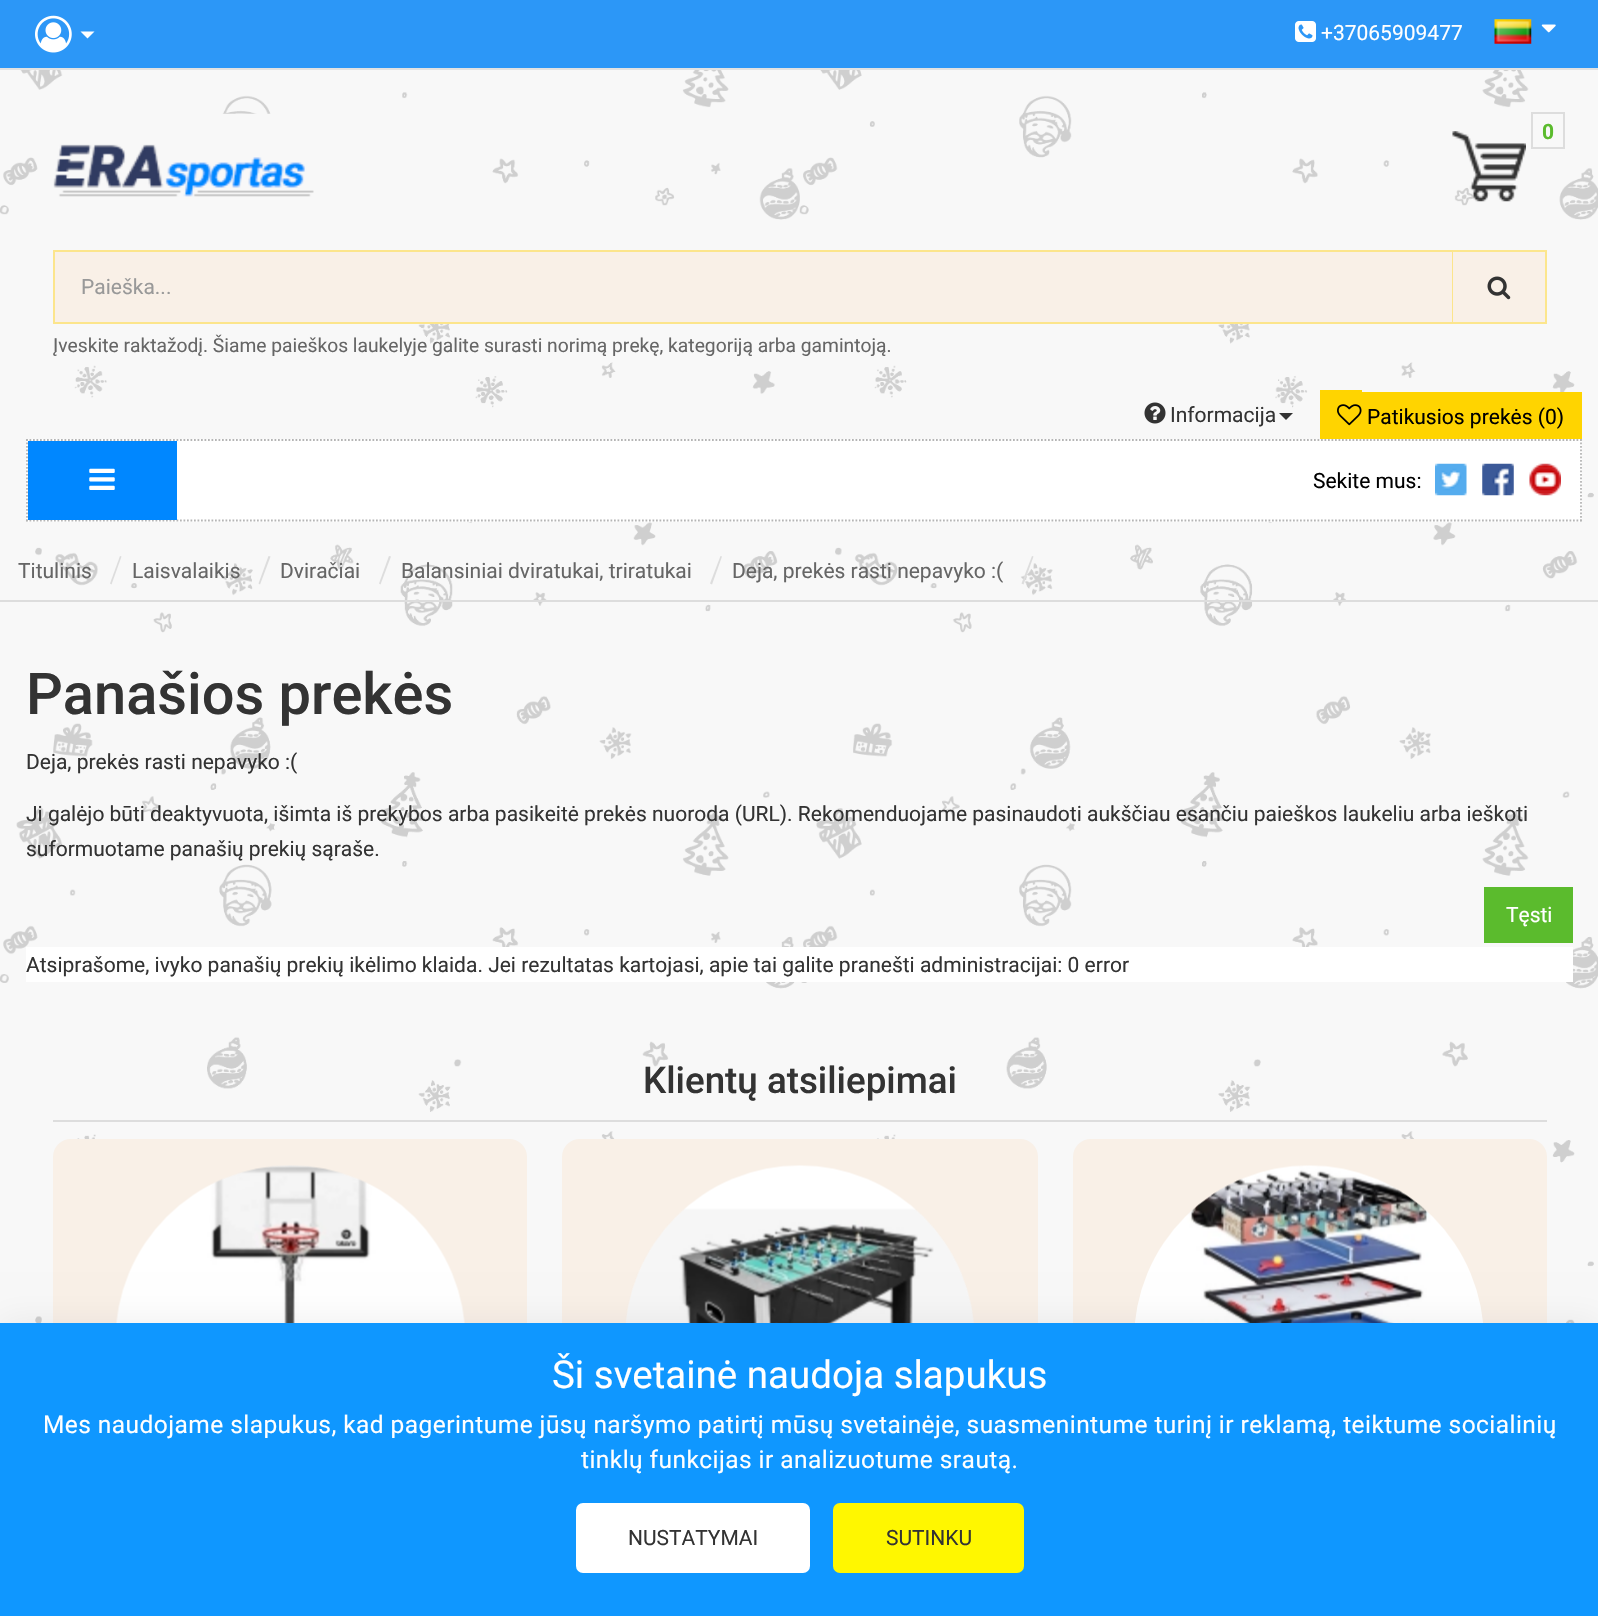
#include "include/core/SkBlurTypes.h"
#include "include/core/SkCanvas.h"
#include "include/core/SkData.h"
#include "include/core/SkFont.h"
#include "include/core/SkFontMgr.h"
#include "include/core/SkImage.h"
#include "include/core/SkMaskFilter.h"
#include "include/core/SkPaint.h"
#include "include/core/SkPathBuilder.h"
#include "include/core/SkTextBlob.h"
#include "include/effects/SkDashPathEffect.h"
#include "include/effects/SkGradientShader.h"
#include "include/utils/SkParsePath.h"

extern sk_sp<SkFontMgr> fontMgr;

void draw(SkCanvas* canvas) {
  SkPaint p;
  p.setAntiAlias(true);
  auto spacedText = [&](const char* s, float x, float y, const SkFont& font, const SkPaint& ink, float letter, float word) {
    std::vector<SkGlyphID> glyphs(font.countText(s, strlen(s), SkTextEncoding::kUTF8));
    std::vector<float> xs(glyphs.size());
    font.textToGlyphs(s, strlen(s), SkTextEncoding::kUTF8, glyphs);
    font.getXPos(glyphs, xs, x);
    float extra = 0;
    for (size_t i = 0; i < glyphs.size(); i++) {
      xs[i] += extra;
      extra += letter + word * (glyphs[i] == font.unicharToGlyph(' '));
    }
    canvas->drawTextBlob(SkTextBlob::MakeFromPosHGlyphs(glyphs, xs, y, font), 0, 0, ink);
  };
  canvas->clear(SkColorSetRGB(248, 248, 248));
  canvas->drawImageRect(SkImages::DeferredFromEncodedData(SkData::MakeFromFileName("images/1.png")), SkRect::MakeLTRB(0, 70, 1598, 1323), SkSamplingOptions());
  p.setColor(SkColorSetRGB(44, 151, 247));
  canvas->drawRect(SkRect::MakeLTRB(0, 0, 1598, 68), p);
  p.setColor(SkColorSetRGB(226, 226, 226));
  canvas->drawRect(SkRect::MakeLTRB(0, 68, 1598, 70), p);
  canvas->drawImageRect(SkImages::DeferredFromEncodedData(SkData::MakeFromFileName("images/2.png")), SkRect::MakeLTRB(35, 15, 72, 53), SkSamplingOptions());
  p.setColor(SK_ColorWHITE);
  canvas->drawPath(SkPathBuilder().moveTo(80.5f, 31.5f).lineTo(94.5f, 31.5f).lineTo(87.5f, 38.5f).close().detach(), p);
  canvas->drawImageRect(SkImages::DeferredFromEncodedData(SkData::MakeFromFileName("images/3.png")), SkRect::MakeLTRB(1295, 21, 1316, 42), SkSamplingOptions());
  canvas->drawImageRect(SkImages::DeferredFromEncodedData(SkData::MakeFromFileName("images/4.png")), SkRect::MakeLTRB(1494, 19, 1532, 44), SkSamplingOptions());
  canvas->drawImageRect(SkImages::DeferredFromEncodedData(SkData::MakeFromFileName("images/5.png")), SkRect::MakeLTRB(1541, 24, 1556, 33), SkSamplingOptions());
  canvas->drawImageRect(SkImages::DeferredFromEncodedData(SkData::MakeFromFileName("images/6.png")), SkRect::MakeLTRB(53, 113, 314, 197), SkSamplingOptions());
  canvas->drawImageRect(SkImages::DeferredFromEncodedData(SkData::MakeFromFileName("images/7.png")), SkRect::MakeLTRB(1452, 131, 1526, 202), SkSamplingOptions());
  p.setStyle(SkPaint::kStroke_Style);
  p.setStrokeWidth(2);
  p.setColor(SkColorSetRGB(221, 221, 221));
  canvas->drawRect(SkRect::MakeLTRB(1532, 113, 1564, 148), p);
  p.setStyle(SkPaint::kFill_Style);
  p.setColor(SkColorSetRGB(249, 240, 231));
  canvas->drawRect(SkRect::MakeLTRB(54, 251, 1453, 323), p);
  p.setStyle(SkPaint::kStroke_Style);
  p.setColor(SkColorSetRGB(252, 229, 140));
  canvas->drawRect(SkRect::MakeLTRB(54, 251, 1453, 323), p);
  p.setStyle(SkPaint::kFill_Style);
  p.setColor(SkColorSetRGB(249, 240, 231));
  canvas->drawRect(SkRect::MakeLTRB(1453, 252, 1545, 322), p);
  p.setColor(SkColorSetRGB(252, 230, 141));
  canvas->drawRect(SkRect::MakeLTRB(1453, 250, 1547, 252), p);
  canvas->drawRect(SkRect::MakeLTRB(1545, 250, 1547, 324), p);
  canvas->drawRect(SkRect::MakeLTRB(1453, 322, 1547, 324), p);
  canvas->drawImageRect(SkImages::DeferredFromEncodedData(SkData::MakeFromFileName("images/8.png")), SkRect::MakeLTRB(1487, 276, 1511, 300), SkSamplingOptions());
  canvas->drawImageRect(SkImages::DeferredFromEncodedData(SkData::MakeFromFileName("images/9.png")), SkRect::MakeLTRB(1144, 402, 1166, 424), SkSamplingOptions());
  p.setColor(SkColorSetRGB(51, 51, 51));
  canvas->drawPath(SkPathBuilder().moveTo(1279, 413).lineTo(1293, 413).lineTo(1286, 420).close().detach(), p);
  p.setColor(SkColorSetRGB(255, 212, 0));
  canvas->drawRect(SkRect::MakeLTRB(1320, 390, 1362, 439), p);
  canvas->drawRect(SkRect::MakeLTRB(1362, 392, 1582, 439), p);
  canvas->drawImageRect(SkImages::DeferredFromEncodedData(SkData::MakeFromFileName("images/10.png")), SkRect::MakeLTRB(1337, 404, 1362, 426), SkSamplingOptions());
  p.setColor(SK_ColorWHITE);
  canvas->drawRect(SkRect::MakeLTRB(26, 439, 1582, 522), p);
  p.setStyle(SkPaint::kStroke_Style);
  p.setStrokeWidth(1.8f);
  p.setColor(SkColorSetRGB(181, 181, 181));
  p.setPathEffect(SkDashPathEffect::Make({{1.75f, 1.75f}}, 0));
  canvas->drawPath(SkPathBuilder().moveTo(26, 440).lineTo(1582, 440).detach(), p);
  p.setPathEffect(nullptr);
  p.setPathEffect(SkDashPathEffect::Make({{1.75f, 1.75f}}, 0));
  canvas->drawPath(SkPathBuilder().moveTo(1581, 439).lineTo(1581, 521.5f).detach(), p);
  p.setPathEffect(nullptr);
  p.setPathEffect(SkDashPathEffect::Make({{1.75f, 1.75f}}, 0));
  canvas->drawPath(SkPathBuilder().moveTo(26, 520.5f).lineTo(1582, 520.5f).detach(), p);
  p.setPathEffect(nullptr);
  p.setPathEffect(SkDashPathEffect::Make({{1.75f, 1.75f}}, 0));
  canvas->drawPath(SkPathBuilder().moveTo(27, 439).lineTo(27, 521.5f).detach(), p);
  p.setPathEffect(nullptr);
  p.setStyle(SkPaint::kFill_Style);
  p.setColor(SkColorSetRGB(0, 135, 255));
  canvas->drawRect(SkRect::MakeLTRB(28, 441, 177, 520), p);
  canvas->drawImageRect(SkImages::DeferredFromEncodedData(SkData::MakeFromFileName("images/11.png")), SkRect::MakeLTRB(89, 468, 115, 490), SkSamplingOptions());
  canvas->drawImageRect(SkImages::DeferredFromEncodedData(SkData::MakeFromFileName("images/12.png")), SkRect::MakeLTRB(1435, 463, 1467, 496), SkSamplingOptions());
  canvas->drawImageRect(SkImages::DeferredFromEncodedData(SkData::MakeFromFileName("images/13.png")), SkRect::MakeLTRB(1482, 463, 1514, 496), SkSamplingOptions());
  canvas->drawImageRect(SkImages::DeferredFromEncodedData(SkData::MakeFromFileName("images/14.png")), SkRect::MakeLTRB(1529, 463, 1561, 496), SkSamplingOptions());
  p.setColor(SkColorSetRGB(221, 221, 221));
  canvas->drawRect(SkRect::MakeLTRB(0, 600, 1598, 602), p);
  canvas->drawPath(SkPathBuilder().moveTo(120, 556).lineTo(121.5f, 556.5f).lineTo(111.5f, 584.5f).lineTo(110, 583.5f).close().detach(), p);
  canvas->drawPath(SkPathBuilder().moveTo(268.5f, 556).lineTo(270.5f, 556.5f).lineTo(260, 584.5f).lineTo(258.5f, 583.5f).close().detach(), p);
  canvas->drawPath(SkPathBuilder().moveTo(389, 556).lineTo(391, 556.5f).lineTo(380.5f, 584.5f).lineTo(379, 583.5f).close().detach(), p);
  canvas->drawPath(SkPathBuilder().moveTo(720.5f, 556).lineTo(722, 556.5f).lineTo(712, 584.5f).lineTo(710, 583.5f).close().detach(), p);
  canvas->drawPath(SkPathBuilder().moveTo(1032, 556).lineTo(1033.5f, 556.5f).lineTo(1023.5f, 584.5f).lineTo(1021.5f, 583.5f).close().detach(), p);
  p.setColor(SkColorSetRGB(91, 187, 45));
  canvas->drawRect(SkRect::MakeLTRB(1484, 887, 1573, 943), p);
  p.setColor(SK_ColorWHITE);
  canvas->drawRect(SkRect::MakeLTRB(26, 947, 1573, 982), p);
  p.setColor(SkColorSetRGB(221, 221, 221));
  canvas->drawRect(SkRect::MakeLTRB(53, 1120, 1547, 1122), p);
  p.setColor(SkColorSetRGB(249, 240, 231));
  canvas->drawRoundRect(SkRect::MakeLTRB(53, 1139, 527, 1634), 18, 18, p);
  canvas->drawImageRect(SkImages::DeferredFromEncodedData(SkData::MakeFromFileName("images/15.png")), SkRect::MakeLTRB(115, 1165, 466, 1323), SkSamplingOptions());
  canvas->drawRoundRect(SkRect::MakeLTRB(562, 1139, 1038, 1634), 18, 18, p);
  canvas->drawImageRect(SkImages::DeferredFromEncodedData(SkData::MakeFromFileName("images/16.png")), SkRect::MakeLTRB(625, 1165, 975, 1323), SkSamplingOptions());
  canvas->drawRoundRect(SkRect::MakeLTRB(1073, 1139, 1547, 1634), 18, 18, p);
  canvas->drawImageRect(SkImages::DeferredFromEncodedData(SkData::MakeFromFileName("images/17.png")), SkRect::MakeLTRB(1134, 1165, 1484, 1323), SkSamplingOptions());
  p.setColor(SkColorSetARGB(15, 0, 0, 0));
  p.setMaskFilter(SkMaskFilter::MakeBlur(kNormal_SkBlurStyle, 16));
  canvas->drawRect(SkRect::MakeLTRB(0, 1320, 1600, 1614), p);
  p.setMaskFilter(nullptr);
  p.setColor(SkColorSetRGB(15, 151, 255));
  canvas->drawRect(SkRect::MakeLTRB(0, 1323, 1598, 1616), p);
  p.setColor(SK_ColorWHITE);
  canvas->drawRoundRect(SkRect::MakeLTRB(576, 1503, 810, 1573), 7, 7, p);
  p.setColor(SkColorSetRGB(255, 247, 0));
  canvas->drawRoundRect(SkRect::MakeLTRB(833, 1503, 1024, 1573), 7, 7, p);
  SkFont font1(fontMgr->matchFamilyStyle("Roboto", SkFontStyle::Normal()), 21);
  font1.setSubpixel(true);
  p.setColor(SK_ColorWHITE);
  canvas->drawString("+37065909477", 1321, 40, font1, p);
  SkFont font2(fontMgr->matchFamilyStyle("Roboto", SkFontStyle::Bold()), 21);
  font2.setSubpixel(true);
  p.setColor(SkColorSetRGB(91, 187, 45));
  canvas->drawString("0", 1542, 139, font2, p);
  p.setColor(SkColorSetRGB(153, 153, 153));
  canvas->drawString("Paieška...", 81, 294, font1, p);
  SkFont font3(fontMgr->matchFamilyStyle("Roboto", SkFontStyle::Normal()), 19.25f);
  font3.setSubpixel(true);
  p.setColor(SkColorSetRGB(102, 102, 102));
  canvas->drawString("Įveskite raktažodį. Šiame paieškos laukelyje galite surasti norimą prekę, kategoriją arba gamintoją.", 53, 352, font3, p);
  p.setColor(SkColorSetRGB(51, 51, 51));
  canvas->drawString("Informacija", 1170, 422, font1, p);
  p.setColor(SK_ColorBLACK);
  canvas->drawString("Patikusios prekės (0)", 1367, 424, font1, p);
  canvas->drawString("Sekite mus:", 1313, 488, font1, p);
  p.setColor(SkColorSetRGB(102, 102, 102));
  canvas->drawString("Titulinis", 18, 578, font1, p);
  canvas->drawString("Laisvalaikis", 132, 578, font1, p);
  canvas->drawString("Dviračiai", 280, 578, font1, p);
  canvas->drawString("Balansiniai dviratukai, triratukai", 401, 578, font1, p);
  canvas->drawString("Deja, prekės rasti nepavyko :(", 732, 578, font1, p);
  SkFont font4(fontMgr->matchFamilyStyle("Roboto", SkFontStyle(500, SkFontStyle::kNormal_Width, SkFontStyle::kUpright_Slant)), 57.75f);
  font4.setSubpixel(true);
  p.setColor(SkColorSetRGB(51, 51, 51));
  canvas->drawString("Panašios prekės", 26, 714, font4, p);
  canvas->drawString("Deja, prekės rasti nepavyko :(", 26, 769, font1, p);
  canvas->drawString("Ji galėjo būti deaktyvuota, išimta iš prekybos arba pasikeitė prekės nuoroda (URL). Rekomenduojame pasinaudoti aukščiau esančiu paieškos laukeliu arba ieškoti", 26, 821, font1, p);
  canvas->drawString("suformuotame panašių prekių sąraše.", 26, 856, font1, p);
  p.setColor(SK_ColorWHITE);
  canvas->drawString("Tęsti", 1506, 922, font1, p);
  p.setColor(SkColorSetRGB(51, 51, 51));
  canvas->drawString("Atsiprašome, ivyko panašių prekių ikėlimo klaida. Jei rezultatas kartojasi, apie tai galite pranešti administracijai: 0 error", 26, 972, font1, p);
  SkFont font5(fontMgr->matchFamilyStyle("Roboto", SkFontStyle(500, SkFontStyle::kNormal_Width, SkFontStyle::kUpright_Slant)), 36.75f);
  font5.setSubpixel(true);
  canvas->drawString("Klientų atsiliepimai", 643, 1093, font5, p);
  SkFont font6(fontMgr->matchFamilyStyle("Roboto", SkFontStyle::Normal()), 38.5f);
  font6.setSubpixel(true);
  p.setColor(SK_ColorWHITE);
  canvas->drawString("Ši svetainė naudoja slapukus", 552, 1388, font6, p);
  SkFont font7(fontMgr->matchFamilyStyle("Roboto", SkFontStyle::Normal()), 24.5f);
  font7.setSubpixel(true);
  spacedText("Mes naudojame slapukus, kad pagerintume jūsų naršymo patirtį mūsų svetainėje, suasmenintume turinį ir reklamą, teiktume socialinių", 43, 1433, font7, p, 0.44f, 0);
  spacedText("tinklų funkcijas ir analizuotume srautą.", 581, 1468, font7, p, 0.44f, 0);
  p.setColor(SkColorSetRGB(51, 51, 51));
  canvas->drawString("NUSTATYMAI", 628, 1545, font1, p);
  canvas->drawString("SUTINKU", 886, 1545, font1, p);
}
